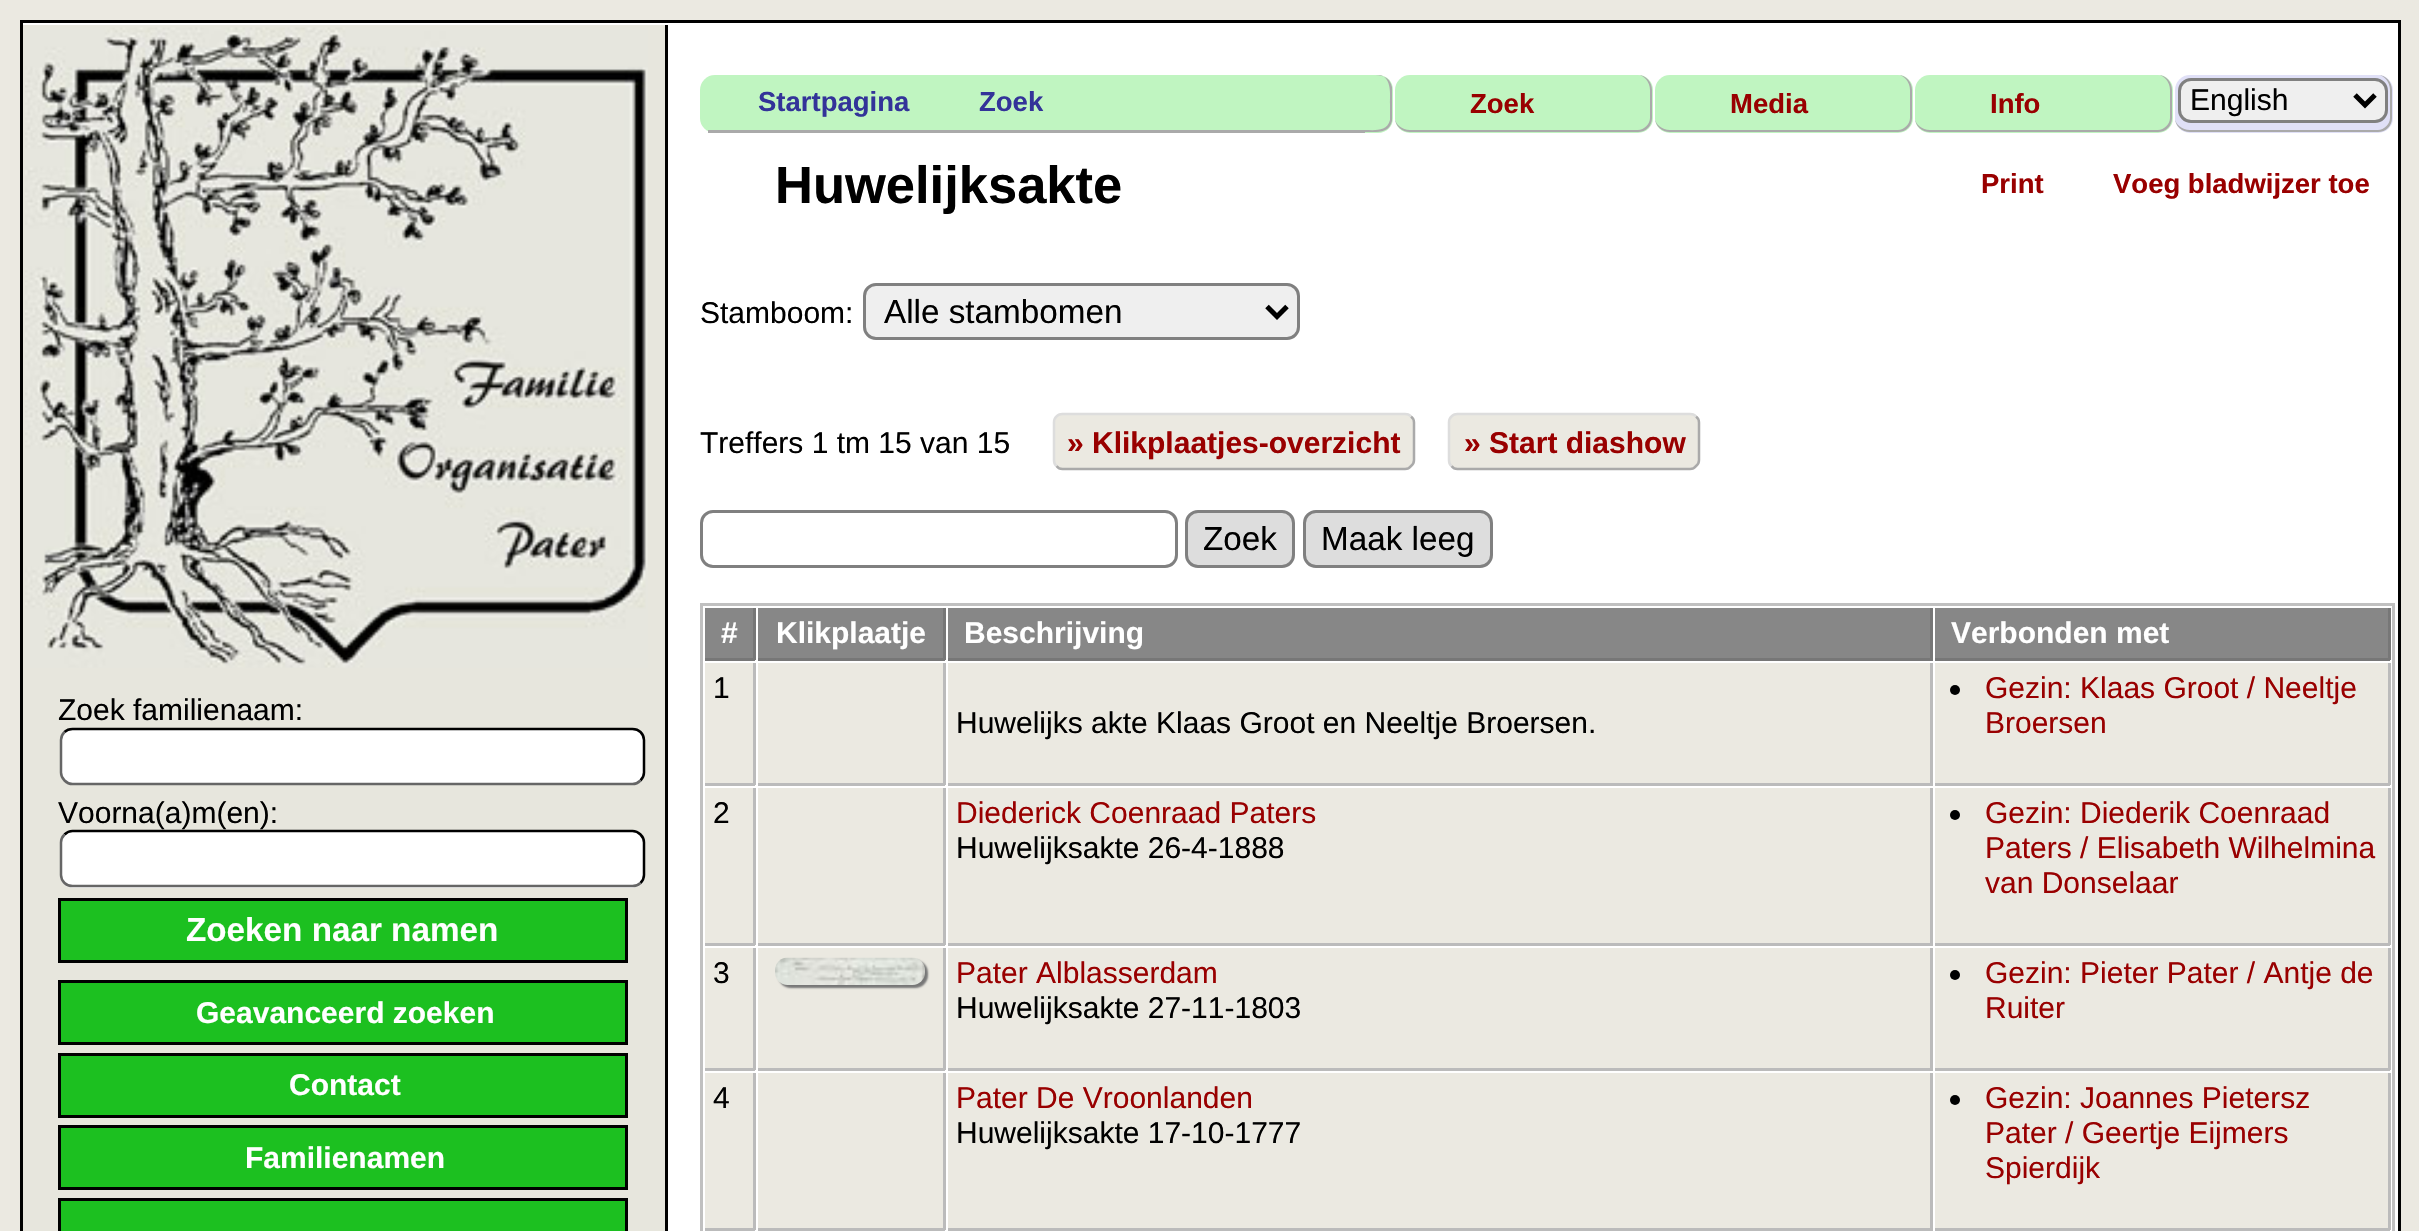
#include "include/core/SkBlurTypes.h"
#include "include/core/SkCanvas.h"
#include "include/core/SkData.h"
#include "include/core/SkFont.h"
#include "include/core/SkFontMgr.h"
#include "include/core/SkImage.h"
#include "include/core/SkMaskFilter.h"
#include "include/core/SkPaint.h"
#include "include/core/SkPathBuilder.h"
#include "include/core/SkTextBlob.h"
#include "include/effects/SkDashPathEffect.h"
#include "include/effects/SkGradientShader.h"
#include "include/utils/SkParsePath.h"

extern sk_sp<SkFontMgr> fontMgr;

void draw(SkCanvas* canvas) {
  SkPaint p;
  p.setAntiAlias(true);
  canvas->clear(SkColorSetRGB(235, 233, 225));
  p.setColor(SK_ColorWHITE);
  canvas->drawRect(SkRect::MakeLTRB(23, 23, 2398, 1231), p);
  p.setColor(SK_ColorBLACK);
  canvas->drawRect(SkRect::MakeLTRB(20, 20, 2400, 23), p);
  canvas->drawRect(SkRect::MakeLTRB(2398, 20, 2401, 1231), p);
  canvas->drawRect(SkRect::MakeLTRB(20, 20, 23, 1231), p);
  p.setColor(SkColorSetRGB(231, 230, 221));
  canvas->drawRect(SkRect::MakeLTRB(23, 25, 665, 1231), p);
  p.setColor(SK_ColorBLACK);
  canvas->drawRect(SkRect::MakeLTRB(665, 25, 668, 1231), p);
  canvas->drawImageRect(SkImages::DeferredFromEncodedData(SkData::MakeFromFileName("images/1.png")), SkRect::MakeLTRB(25, 27, 648, 668), SkSamplingOptions());
  p.setColor(SK_ColorWHITE);
  canvas->drawRoundRect(SkRect::MakeLTRB(60, 728, 645, 785), 13, 13, p);
  p.setStyle(SkPaint::kStroke_Style);
  p.setStrokeWidth(2.5f);
  p.setColor(SK_ColorBLACK);
  canvas->drawPath(SkPathBuilder().moveTo(64.5f, 732).cubicTo(66.5f, 730, 69.5f, 729, 72.5f, 729).lineTo(632.5f, 729).cubicTo(635.5f, 729, 638.5f, 730, 640.5f, 732).cubicTo(642.5f, 734, 644, 737, 644, 740).lineTo(644, 772.5f).cubicTo(644, 775.5f, 642.5f, 778.5f, 640.5f, 780.5f).detach(), p);
  p.setColor(SkColorSetRGB(102, 102, 102));
  canvas->drawPath(SkPathBuilder().moveTo(640.5f, 780.5f).cubicTo(638.5f, 782.5f, 635.5f, 784, 632.5f, 784).lineTo(72.5f, 784).cubicTo(69.5f, 784, 66.5f, 782.5f, 64.5f, 780.5f).cubicTo(62.5f, 778.5f, 61, 775.5f, 61, 772.5f).lineTo(61, 740).cubicTo(61, 737, 62.5f, 734, 64.5f, 732).detach(), p);
  p.setStyle(SkPaint::kFill_Style);
  p.setColor(SK_ColorWHITE);
  canvas->drawRoundRect(SkRect::MakeLTRB(60, 830, 645, 888), 13, 13, p);
  p.setStyle(SkPaint::kStroke_Style);
  p.setColor(SK_ColorBLACK);
  canvas->drawPath(SkPathBuilder().moveTo(64.5f, 834.5f).cubicTo(66.5f, 832.5f, 69.5f, 831, 72.5f, 831).lineTo(632.5f, 831).cubicTo(635.5f, 831, 638.5f, 832.5f, 640.5f, 834.5f).cubicTo(642.5f, 836.5f, 644, 839.5f, 644, 842.5f).lineTo(644, 875).cubicTo(644, 878, 642.5f, 881, 640.5f, 883).detach(), p);
  p.setColor(SkColorSetRGB(102, 102, 102));
  canvas->drawPath(SkPathBuilder().moveTo(640.5f, 883).cubicTo(638.5f, 885, 635.5f, 886, 632.5f, 886).lineTo(72.5f, 886).cubicTo(69.5f, 886, 66.5f, 885, 64.5f, 883).cubicTo(62.5f, 881, 61, 878, 61, 875).lineTo(61, 842.5f).cubicTo(61, 839.5f, 62.5f, 836.5f, 64.5f, 834.5f).detach(), p);
  p.setStyle(SkPaint::kFill_Style);
  p.setColor(SkColorSetRGB(28, 192, 32));
  canvas->drawRect(SkRect::MakeLTRB(59.5f, 899.5f, 626.5f, 961.5f), p);
  p.setStyle(SkPaint::kStroke_Style);
  p.setStrokeWidth(3);
  p.setColor(SK_ColorBLACK);
  canvas->drawRect(SkRect::MakeLTRB(59.5f, 899.5f, 626.5f, 961.5f), p);
  p.setStyle(SkPaint::kFill_Style);
  p.setColor(SkColorSetRGB(28, 192, 32));
  canvas->drawRect(SkRect::MakeLTRB(59.5f, 981.5f, 626.5f, 1043.5f), p);
  p.setStyle(SkPaint::kStroke_Style);
  p.setColor(SK_ColorBLACK);
  canvas->drawRect(SkRect::MakeLTRB(59.5f, 981.5f, 626.5f, 1043.5f), p);
  p.setStyle(SkPaint::kFill_Style);
  p.setColor(SkColorSetRGB(28, 192, 32));
  canvas->drawRect(SkRect::MakeLTRB(59.5f, 1054.5f, 626.5f, 1116.5f), p);
  p.setStyle(SkPaint::kStroke_Style);
  p.setColor(SK_ColorBLACK);
  canvas->drawRect(SkRect::MakeLTRB(59.5f, 1054.5f, 626.5f, 1116.5f), p);
  p.setStyle(SkPaint::kFill_Style);
  p.setColor(SkColorSetRGB(28, 192, 32));
  canvas->drawRect(SkRect::MakeLTRB(59.5f, 1126.5f, 626.5f, 1188.5f), p);
  p.setStyle(SkPaint::kStroke_Style);
  p.setColor(SK_ColorBLACK);
  canvas->drawRect(SkRect::MakeLTRB(59.5f, 1126.5f, 626.5f, 1188.5f), p);
  p.setStyle(SkPaint::kFill_Style);
  p.setColor(SkColorSetRGB(28, 192, 32));
  canvas->drawRect(SkRect::MakeLTRB(59.5f, 1199.5f, 626.5f, 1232.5f), p);
  p.setStyle(SkPaint::kStroke_Style);
  p.setColor(SK_ColorBLACK);
  canvas->drawRect(SkRect::MakeLTRB(59.5f, 1199.5f, 626.5f, 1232.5f), p);
  p.setStyle(SkPaint::kFill_Style);
  p.setColor(SkColorSetRGB(192, 245, 193));
  canvas->drawRoundRect(SkRect::MakeLTRB(700, 75, 2395, 133), 15, 15, p);
  p.setColor(SkColorSetRGB(170, 170, 170));
  canvas->drawRect(SkRect::MakeLTRB(708, 130, 1365, 133), p);
  p.setColor(SK_ColorWHITE);
  canvas->drawRect(SkRect::MakeLTRB(1378, 75, 2395, 133), p);
  p.setColor(SkColorSetRGB(192, 245, 193));
  canvas->drawPath(SkPathBuilder().moveTo(1365, 75).lineTo(1378, 75).cubicTo(1386.5f, 75, 1393, 81.5f, 1393, 90).lineTo(1393, 118).cubicTo(1393, 126.5f, 1386.5f, 133, 1378, 133).lineTo(1365, 133).close().detach(), p);
  p.setColor(SkColorSetRGB(170, 170, 170));
  canvas->drawPath(SkPathBuilder(SkPathFillType::kEvenOdd).moveTo(1365, 75).cubicTo(1376, 75, 1389, 73, 1392, 87).lineTo(1392, 121).cubicTo(1389, 134, 1376, 132, 1365, 132).close().moveTo(1365, 75).lineTo(1380, 75).cubicTo(1392, 78, 1390, 95, 1390, 104).lineTo(1390, 120).cubicTo(1387, 132, 1374, 130, 1365, 130).close().detach(), p);
  p.setColor(SkColorSetRGB(192, 245, 193));
  canvas->drawRoundRect(SkRect::MakeLTRB(1395, 75, 1653, 133), 15, 15, p);
  p.setColor(SkColorSetRGB(170, 170, 170));
  canvas->drawPath(SkPathBuilder(SkPathFillType::kEvenOdd).moveTo(1410, 75).lineTo(1638, 75).cubicTo(1646, 75, 1652, 82, 1652, 90).lineTo(1652, 118).cubicTo(1652, 126, 1646, 132, 1638, 132).lineTo(1410, 132).cubicTo(1402, 132, 1395, 126, 1395, 118).lineTo(1395, 90).cubicTo(1395, 82, 1402, 75, 1410, 75).close().moveTo(1410, 75).lineTo(1638, 75).cubicTo(1644, 75, 1650, 82, 1650, 90).lineTo(1650, 118).cubicTo(1650, 124, 1644, 130, 1638, 130).lineTo(1410, 130).cubicTo(1402, 130, 1395, 124, 1395, 118).lineTo(1395, 90).cubicTo(1395, 82, 1402, 75, 1410, 75).close().detach(), p);
  p.setColor(SkColorSetRGB(192, 245, 193));
  canvas->drawRoundRect(SkRect::MakeLTRB(1655, 75, 1913, 133), 15, 15, p);
  p.setColor(SkColorSetRGB(170, 170, 170));
  canvas->drawPath(SkPathBuilder(SkPathFillType::kEvenOdd).moveTo(1670, 75).lineTo(1898, 75).cubicTo(1906, 75, 1912, 82, 1912, 90).lineTo(1912, 118).cubicTo(1912, 126, 1906, 132, 1898, 132).lineTo(1670, 132).cubicTo(1662, 132, 1655, 126, 1655, 118).lineTo(1655, 90).cubicTo(1655, 82, 1662, 75, 1670, 75).close().moveTo(1670, 75).lineTo(1898, 75).cubicTo(1904, 75, 1910, 82, 1910, 90).lineTo(1910, 118).cubicTo(1910, 124, 1904, 130, 1898, 130).lineTo(1670, 130).cubicTo(1662, 130, 1655, 124, 1655, 118).lineTo(1655, 90).cubicTo(1655, 82, 1662, 75, 1670, 75).close().detach(), p);
  p.setColor(SkColorSetRGB(192, 245, 193));
  canvas->drawRoundRect(SkRect::MakeLTRB(1915, 75, 2173, 133), 15, 15, p);
  p.setColor(SkColorSetRGB(170, 170, 170));
  canvas->drawPath(SkPathBuilder(SkPathFillType::kEvenOdd).moveTo(1930, 75).lineTo(2158, 75).cubicTo(2166, 75, 2172, 82, 2172, 90).lineTo(2172, 118).cubicTo(2172, 126, 2166, 132, 2158, 132).lineTo(1930, 132).cubicTo(1922, 132, 1915, 126, 1915, 118).lineTo(1915, 90).cubicTo(1915, 82, 1922, 75, 1930, 75).close().moveTo(1930, 75).lineTo(2158, 75).cubicTo(2164, 75, 2170, 82, 2170, 90).lineTo(2170, 118).cubicTo(2170, 124, 2164, 130, 2158, 130).lineTo(1930, 130).cubicTo(1922, 130, 1915, 124, 1915, 118).lineTo(1915, 90).cubicTo(1915, 82, 1922, 75, 1930, 75).close().detach(), p);
  p.setColor(SkColorSetRGB(224, 224, 247));
  canvas->drawRoundRect(SkRect::MakeLTRB(2175, 75, 2393, 133), 15, 15, p);
  p.setColor(SkColorSetRGB(170, 170, 170));
  canvas->drawPath(SkPathBuilder(SkPathFillType::kEvenOdd).moveTo(2190, 75).lineTo(2378, 75).cubicTo(2386, 75, 2392, 82, 2392, 90).lineTo(2392, 118).cubicTo(2392, 126, 2386, 132, 2378, 132).lineTo(2190, 132).cubicTo(2182, 132, 2175, 126, 2175, 118).lineTo(2175, 90).cubicTo(2175, 82, 2182, 75, 2190, 75).close().moveTo(2190, 75).lineTo(2378, 75).cubicTo(2384, 75, 2390, 82, 2390, 90).lineTo(2390, 118).cubicTo(2390, 124, 2384, 130, 2378, 130).lineTo(2190, 130).cubicTo(2182, 130, 2175, 124, 2175, 118).lineTo(2175, 90).cubicTo(2175, 82, 2182, 75, 2190, 75).close().detach(), p);
  p.setColor(SkColorSetRGB(239, 239, 239));
  canvas->drawRoundRect(SkRect::MakeLTRB(2179.5f, 79.5f, 2386.5f, 121.5f), 11.5f, 11.5f, p);
  p.setStyle(SkPaint::kStroke_Style);
  p.setColor(SkColorSetRGB(128, 128, 128));
  canvas->drawRoundRect(SkRect::MakeLTRB(2179.5f, 79.5f, 2386.5f, 121.5f), 11.5f, 11.5f, p);
  p.setStrokeWidth(5);
  p.setColor(SK_ColorBLACK);
  canvas->drawPath(SkPathBuilder().moveTo(2355, 95).lineTo(2365, 105).lineTo(2375, 95).detach(), p);
  p.setStyle(SkPaint::kFill_Style);
  p.setColor(SkColorSetRGB(239, 239, 239));
  canvas->drawRoundRect(SkRect::MakeLTRB(864.5f, 284.5f, 1298.5f, 338.5f), 11.5f, 11.5f, p);
  p.setStyle(SkPaint::kStroke_Style);
  p.setStrokeWidth(3);
  p.setColor(SkColorSetRGB(128, 128, 128));
  canvas->drawRoundRect(SkRect::MakeLTRB(864.5f, 284.5f, 1298.5f, 338.5f), 11.5f, 11.5f, p);
  p.setStrokeWidth(5);
  p.setColor(SK_ColorBLACK);
  canvas->drawPath(SkPathBuilder().moveTo(1267, 306.5f).lineTo(1277, 316.5f).lineTo(1287, 306.5f).detach(), p);
  p.setStyle(SkPaint::kFill_Style);
  p.setColor(SkColorSetRGB(235, 233, 225));
  canvas->drawRoundRect(SkRect::MakeLTRB(1053, 413, 1415, 470), 10, 10, p);
  p.setStyle(SkPaint::kStroke_Style);
  p.setStrokeWidth(2.5f);
  p.setColor(SkColorSetRGB(170, 170, 170));
  canvas->drawPath(SkPathBuilder().moveTo(1411, 416.5f).cubicTo(1413, 418, 1414, 420, 1414, 422.5f).lineTo(1414, 460).cubicTo(1414, 462.5f, 1413, 464.5f, 1411, 466).cubicTo(1409.5f, 468, 1407.5f, 469, 1405, 469).lineTo(1062.5f, 469).cubicTo(1060, 469, 1058, 468, 1056.5f, 466).detach(), p);
  p.setColor(SkColorSetRGB(221, 221, 221));
  canvas->drawPath(SkPathBuilder().moveTo(1056.5f, 466).cubicTo(1054.5f, 464.5f, 1054, 462.5f, 1054, 460).lineTo(1054, 422.5f).cubicTo(1054, 420, 1054.5f, 418, 1056.5f, 416.5f).cubicTo(1058, 414.5f, 1060, 414, 1062.5f, 414).lineTo(1405, 414).cubicTo(1407.5f, 414, 1409.5f, 414.5f, 1411, 416.5f).detach(), p);
  p.setStyle(SkPaint::kFill_Style);
  p.setColor(SkColorSetRGB(235, 233, 225));
  canvas->drawRoundRect(SkRect::MakeLTRB(1448, 413, 1700, 470), 10, 10, p);
  p.setStyle(SkPaint::kStroke_Style);
  p.setColor(SkColorSetRGB(170, 170, 170));
  canvas->drawPath(SkPathBuilder().moveTo(1696, 416.5f).cubicTo(1698, 418, 1699, 420, 1699, 422.5f).lineTo(1699, 460).cubicTo(1699, 462.5f, 1698, 464.5f, 1696, 466).cubicTo(1694.5f, 468, 1692.5f, 469, 1690, 469).lineTo(1457.5f, 469).cubicTo(1455, 469, 1453, 468, 1451.5f, 466).detach(), p);
  p.setColor(SkColorSetRGB(221, 221, 221));
  canvas->drawPath(SkPathBuilder().moveTo(1451.5f, 466).cubicTo(1449.5f, 464.5f, 1449, 462.5f, 1449, 460).lineTo(1449, 422.5f).cubicTo(1449, 420, 1449.5f, 418, 1451.5f, 416.5f).cubicTo(1453, 414.5f, 1455, 414, 1457.5f, 414).lineTo(1690, 414).cubicTo(1692.5f, 414, 1694.5f, 414.5f, 1696, 416.5f).detach(), p);
  p.setStrokeWidth(3);
  p.setColor(SkColorSetRGB(128, 128, 128));
  canvas->drawRoundRect(SkRect::MakeLTRB(701.5f, 511.5f, 1176.5f, 566.5f), 11.5f, 11.5f, p);
  p.setStyle(SkPaint::kFill_Style);
  p.setColor(SkColorSetRGB(221, 221, 221));
  canvas->drawRoundRect(SkRect::MakeLTRB(1186.5f, 511.5f, 1293.5f, 566.5f), 11.5f, 11.5f, p);
  p.setStyle(SkPaint::kStroke_Style);
  p.setColor(SkColorSetRGB(128, 128, 128));
  canvas->drawRoundRect(SkRect::MakeLTRB(1186.5f, 511.5f, 1293.5f, 566.5f), 11.5f, 11.5f, p);
  p.setStyle(SkPaint::kFill_Style);
  p.setColor(SkColorSetRGB(221, 221, 221));
  canvas->drawRoundRect(SkRect::MakeLTRB(1304.5f, 511.5f, 1491.5f, 566.5f), 11.5f, 11.5f, p);
  p.setStyle(SkPaint::kStroke_Style);
  p.setColor(SkColorSetRGB(128, 128, 128));
  canvas->drawRoundRect(SkRect::MakeLTRB(1304.5f, 511.5f, 1491.5f, 566.5f), 11.5f, 11.5f, p);
  p.setColor(SkColorSetRGB(192, 192, 192));
  canvas->drawRect(SkRect::MakeLTRB(701.5f, 604.5f, 2393.5f, 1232.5f), p);
  p.setStyle(SkPaint::kFill_Style);
  p.setColor(SkColorSetRGB(135, 135, 135));
  canvas->drawRect(SkRect::MakeLTRB(705, 608, 753, 658), p);
  p.setColor(SkColorSetRGB(119, 119, 119));
  canvas->drawRect(SkRect::MakeLTRB(753, 608, 756, 660), p);
  canvas->drawRect(SkRect::MakeLTRB(705, 658, 755, 661), p);
  p.setColor(SkColorSetRGB(135, 135, 135));
  canvas->drawRect(SkRect::MakeLTRB(758, 608, 943, 658), p);
  p.setColor(SkColorSetRGB(119, 119, 119));
  canvas->drawRect(SkRect::MakeLTRB(943, 608, 946, 660), p);
  canvas->drawRect(SkRect::MakeLTRB(758, 658, 945, 661), p);
  p.setColor(SkColorSetRGB(135, 135, 135));
  canvas->drawRect(SkRect::MakeLTRB(948, 608, 1930, 658), p);
  p.setColor(SkColorSetRGB(119, 119, 119));
  canvas->drawRect(SkRect::MakeLTRB(1930, 608, 1933, 660), p);
  canvas->drawRect(SkRect::MakeLTRB(948, 658, 1933, 661), p);
  p.setColor(SkColorSetRGB(135, 135, 135));
  canvas->drawRect(SkRect::MakeLTRB(1935, 608, 2388, 658), p);
  p.setColor(SkColorSetRGB(119, 119, 119));
  canvas->drawRect(SkRect::MakeLTRB(2388, 608, 2391, 660), p);
  canvas->drawRect(SkRect::MakeLTRB(1935, 658, 2390, 661), p);
  p.setColor(SkColorSetRGB(235, 233, 225));
  canvas->drawRect(SkRect::MakeLTRB(705, 663, 753, 783), p);
  p.setColor(SkColorSetRGB(187, 187, 187));
  canvas->drawRect(SkRect::MakeLTRB(753, 663, 756, 785), p);
  canvas->drawRect(SkRect::MakeLTRB(705, 783, 755, 786), p);
  p.setColor(SkColorSetRGB(235, 233, 225));
  canvas->drawRect(SkRect::MakeLTRB(758, 663, 943, 783), p);
  p.setColor(SkColorSetRGB(187, 187, 187));
  canvas->drawRect(SkRect::MakeLTRB(943, 663, 946, 785), p);
  canvas->drawRect(SkRect::MakeLTRB(758, 783, 945, 786), p);
  p.setColor(SkColorSetRGB(235, 233, 225));
  canvas->drawRect(SkRect::MakeLTRB(1935, 663, 2388, 783), p);
  p.setColor(SkColorSetRGB(187, 187, 187));
  canvas->drawRect(SkRect::MakeLTRB(2388, 663, 2391, 785), p);
  canvas->drawRect(SkRect::MakeLTRB(1935, 783, 2390, 786), p);
  p.setColor(SK_ColorBLACK);
  canvas->drawCircle(1955, 690, 5, p);
  p.setColor(SkColorSetRGB(235, 233, 225));
  canvas->drawRect(SkRect::MakeLTRB(948, 663, 1930, 783), p);
  p.setColor(SkColorSetRGB(187, 187, 187));
  canvas->drawRect(SkRect::MakeLTRB(1930, 663, 1933, 785), p);
  canvas->drawRect(SkRect::MakeLTRB(948, 783, 1933, 786), p);
  p.setColor(SkColorSetRGB(235, 233, 225));
  canvas->drawRect(SkRect::MakeLTRB(705, 788, 753, 943), p);
  p.setColor(SkColorSetRGB(187, 187, 187));
  canvas->drawRect(SkRect::MakeLTRB(753, 788, 756, 945), p);
  canvas->drawRect(SkRect::MakeLTRB(705, 943, 755, 946), p);
  p.setColor(SkColorSetRGB(235, 233, 225));
  canvas->drawRect(SkRect::MakeLTRB(758, 788, 943, 943), p);
  p.setColor(SkColorSetRGB(187, 187, 187));
  canvas->drawRect(SkRect::MakeLTRB(943, 788, 946, 945), p);
  canvas->drawRect(SkRect::MakeLTRB(758, 943, 945, 946), p);
  p.setColor(SkColorSetRGB(235, 233, 225));
  canvas->drawRect(SkRect::MakeLTRB(948, 788, 1930, 943), p);
  p.setColor(SkColorSetRGB(187, 187, 187));
  canvas->drawRect(SkRect::MakeLTRB(1930, 788, 1933, 945), p);
  canvas->drawRect(SkRect::MakeLTRB(948, 943, 1933, 946), p);
  p.setColor(SkColorSetRGB(235, 233, 225));
  canvas->drawRect(SkRect::MakeLTRB(1935, 788, 2388, 943), p);
  p.setColor(SkColorSetRGB(187, 187, 187));
  canvas->drawRect(SkRect::MakeLTRB(2388, 788, 2391, 945), p);
  canvas->drawRect(SkRect::MakeLTRB(1935, 943, 2390, 946), p);
  p.setColor(SK_ColorBLACK);
  canvas->drawCircle(1955, 815, 5, p);
  p.setColor(SkColorSetRGB(235, 233, 225));
  canvas->drawRect(SkRect::MakeLTRB(705, 948, 753, 1068), p);
  p.setColor(SkColorSetRGB(187, 187, 187));
  canvas->drawRect(SkRect::MakeLTRB(753, 948, 756, 1070), p);
  canvas->drawRect(SkRect::MakeLTRB(705, 1068, 755, 1071), p);
  p.setColor(SkColorSetRGB(235, 233, 225));
  canvas->drawRect(SkRect::MakeLTRB(758, 948, 943, 1068), p);
  p.setColor(SkColorSetRGB(187, 187, 187));
  canvas->drawRect(SkRect::MakeLTRB(943, 948, 946, 1070), p);
  canvas->drawRect(SkRect::MakeLTRB(758, 1068, 945, 1071), p);
  p.setColor(SkColorSetRGB(119, 119, 119));
  p.setMaskFilter(SkMaskFilter::MakeBlur(kNormal_SkBlurStyle, 1));
  canvas->drawRoundRect(SkRect::MakeLTRB(778, 960, 928, 988), 13, 13, p);
  p.setMaskFilter(nullptr);
  canvas->drawImageRect(SkImages::DeferredFromEncodedData(SkData::MakeFromFileName("images/2.png")), SkRect::MakeLTRB(775, 957, 925, 985), SkSamplingOptions());
  p.setColor(SkColorSetRGB(235, 233, 225));
  canvas->drawRect(SkRect::MakeLTRB(948, 948, 1930, 1068), p);
  p.setColor(SkColorSetRGB(187, 187, 187));
  canvas->drawRect(SkRect::MakeLTRB(1930, 948, 1933, 1070), p);
  canvas->drawRect(SkRect::MakeLTRB(948, 1068, 1933, 1071), p);
  p.setColor(SkColorSetRGB(235, 233, 225));
  canvas->drawRect(SkRect::MakeLTRB(1935, 948, 2388, 1068), p);
  p.setColor(SkColorSetRGB(187, 187, 187));
  canvas->drawRect(SkRect::MakeLTRB(2388, 948, 2391, 1070), p);
  canvas->drawRect(SkRect::MakeLTRB(1935, 1068, 2390, 1071), p);
  p.setColor(SK_ColorBLACK);
  canvas->drawCircle(1955, 975, 5, p);
  p.setColor(SkColorSetRGB(235, 233, 225));
  canvas->drawRect(SkRect::MakeLTRB(705, 1073, 753, 1228), p);
  p.setColor(SkColorSetRGB(187, 187, 187));
  canvas->drawRect(SkRect::MakeLTRB(753, 1073, 756, 1230), p);
  canvas->drawRect(SkRect::MakeLTRB(705, 1228, 755, 1231), p);
  p.setColor(SkColorSetRGB(235, 233, 225));
  canvas->drawRect(SkRect::MakeLTRB(758, 1073, 943, 1228), p);
  p.setColor(SkColorSetRGB(187, 187, 187));
  canvas->drawRect(SkRect::MakeLTRB(943, 1073, 946, 1230), p);
  canvas->drawRect(SkRect::MakeLTRB(758, 1228, 945, 1231), p);
  p.setColor(SkColorSetRGB(235, 233, 225));
  canvas->drawRect(SkRect::MakeLTRB(948, 1073, 1930, 1228), p);
  p.setColor(SkColorSetRGB(187, 187, 187));
  canvas->drawRect(SkRect::MakeLTRB(1930, 1073, 1933, 1230), p);
  canvas->drawRect(SkRect::MakeLTRB(948, 1228, 1933, 1231), p);
  p.setColor(SkColorSetRGB(235, 233, 225));
  canvas->drawRect(SkRect::MakeLTRB(1935, 1073, 2388, 1228), p);
  p.setColor(SkColorSetRGB(187, 187, 187));
  canvas->drawRect(SkRect::MakeLTRB(2388, 1073, 2391, 1230), p);
  canvas->drawRect(SkRect::MakeLTRB(1935, 1228, 2390, 1231), p);
  p.setColor(SK_ColorBLACK);
  canvas->drawCircle(1955, 1100, 5, p);
  SkFont font1(fontMgr->matchFamilyStyle("Liberation Sans", SkFontStyle::Normal()), 30);
  font1.setSubpixel(true);
  canvas->drawString("Zoek familienaam:", 58, 720, font1, p);
  canvas->drawString("Voorna(a)m(en):", 58, 823, font1, p);
  SkFont font2(fontMgr->matchFamilyStyle("Liberation Sans", SkFontStyle::Bold()), 33.25f);
  font2.setSubpixel(true);
  p.setColor(SK_ColorWHITE);
  canvas->drawString("Zoeken naar namen", 186, 941, font2, p);
  SkFont font3(fontMgr->matchFamilyStyle("Liberation Sans", SkFontStyle::Bold()), 30);
  font3.setSubpixel(true);
  canvas->drawString("Geavanceerd zoeken", 196, 1023, font3, p);
  canvas->drawString("Contact", 289, 1095, font3, p);
  canvas->drawString("Familienamen", 245, 1168, font3, p);
  SkFont font4(fontMgr->matchFamilyStyle("Liberation Sans", SkFontStyle::Bold()), 27.5f);
  font4.setSubpixel(true);
  p.setColor(SkColorSetRGB(51, 51, 153));
  canvas->drawString("Startpagina", 758, 111, font4, p);
  canvas->drawString("Zoek", 979, 111, font4, p);
  p.setColor(SkColorSetRGB(153, 0, 0));
  canvas->drawString("Zoek", 1470, 113, font4, p);
  canvas->drawString("Media", 1730, 113, font4, p);
  canvas->drawString("Info", 1990, 113, font4, p);
  p.setColor(SK_ColorBLACK);
  canvas->drawString("English", 2190, 110, font1, p);
  SkFont font5(fontMgr->matchFamilyStyle("Liberation Sans", SkFontStyle::Bold()), 52.5f);
  font5.setSubpixel(true);
  canvas->drawString("Huwelijksakte", 775, 203, font5, p);
  p.setColor(SkColorSetRGB(153, 0, 0));
  canvas->drawString("Print", 1981, 193, font4, p);
  canvas->drawString("Voeg bladwijzer toe", 2113, 193, font4, p);
  p.setColor(SK_ColorBLACK);
  canvas->drawString("Stamboom:", 700, 323, font1, p);
  SkFont font6(fontMgr->matchFamilyStyle("Liberation Sans", SkFontStyle::Normal()), 33.25f);
  font6.setSubpixel(true);
  canvas->drawString("Alle stambomen", 884, 323, font6, p);
  canvas->drawString("Treffers 1 tm 15 van 15", 700, 453, font1, p);
  p.setColor(SkColorSetRGB(153, 0, 0));
  canvas->drawString("» Klikplaatjes-overzicht", 1067, 453, font3, p);
  canvas->drawString("» Start diashow", 1464, 453, font3, p);
  p.setColor(SK_ColorBLACK);
  canvas->drawString("Zoek", 1203, 550, font6, p);
  canvas->drawString("Maak leeg", 1321, 550, font6, p);
  p.setColor(SK_ColorWHITE);
  canvas->drawString("#", 721, 643, font3, p);
  canvas->drawString("Klikplaatje", 776, 643, font3, p);
  canvas->drawString("Beschrijving", 964, 643, font3, p);
  canvas->drawString("Verbonden met", 1951, 643, font3, p);
  p.setColor(SK_ColorBLACK);
  canvas->drawString("1", 713, 698, font1, p);
  p.setColor(SkColorSetRGB(153, 0, 0));
  canvas->drawString("Gezin: Klaas Groot / Neeltje", 1985, 698, font1, p);
  canvas->drawString("Broersen", 1985, 733, font1, p);
  p.setColor(SK_ColorBLACK);
  canvas->drawString("Huwelijks akte Klaas Groot en Neeltje Broersen.", 956, 733, font1, p);
  canvas->drawString("2", 713, 823, font1, p);
  p.setColor(SkColorSetRGB(153, 0, 0));
  canvas->drawString("Diederick Coenraad Paters", 956, 823, font1, p);
  p.setColor(SK_ColorBLACK);
  canvas->drawString("Huwelijksakte 26-4-1888", 956, 858, font1, p);
  p.setColor(SkColorSetRGB(153, 0, 0));
  canvas->drawString("Gezin: Diederik Coenraad", 1985, 823, font1, p);
  canvas->drawString("Paters / Elisabeth Wilhelmina", 1985, 858, font1, p);
  canvas->drawString("van Donselaar", 1985, 893, font1, p);
  p.setColor(SK_ColorBLACK);
  canvas->drawString("3", 713, 983, font1, p);
  p.setColor(SkColorSetRGB(153, 0, 0));
  canvas->drawString("Pater Alblasserdam", 956, 983, font1, p);
  p.setColor(SK_ColorBLACK);
  canvas->drawString("Huwelijksakte 27-11-1803", 956, 1018, font1, p);
  p.setColor(SkColorSetRGB(153, 0, 0));
  canvas->drawString("Gezin: Pieter Pater / Antje de", 1985, 983, font1, p);
  canvas->drawString("Ruiter", 1985, 1018, font1, p);
  p.setColor(SK_ColorBLACK);
  canvas->drawString("4", 713, 1108, font1, p);
  p.setColor(SkColorSetRGB(153, 0, 0));
  canvas->drawString("Pater De Vroonlanden", 956, 1108, font1, p);
  p.setColor(SK_ColorBLACK);
  canvas->drawString("Huwelijksakte 17-10-1777", 956, 1143, font1, p);
  p.setColor(SkColorSetRGB(153, 0, 0));
  canvas->drawString("Gezin: Joannes Pietersz", 1985, 1108, font1, p);
  canvas->drawString("Pater / Geertje Eijmers", 1985, 1143, font1, p);
  canvas->drawString("Spierdijk", 1985, 1178, font1, p);
}
